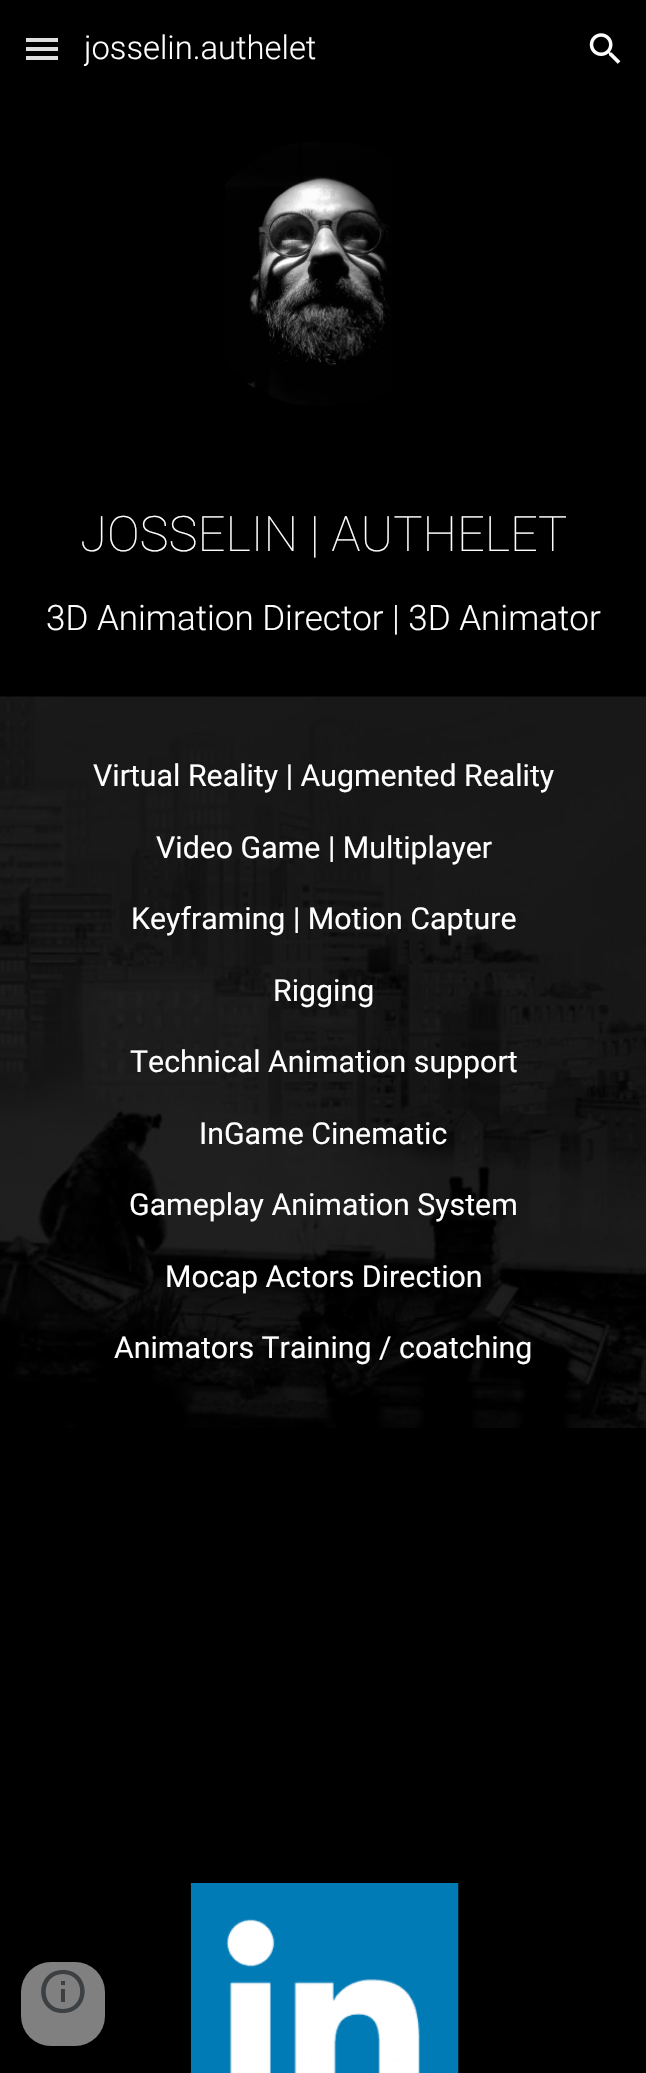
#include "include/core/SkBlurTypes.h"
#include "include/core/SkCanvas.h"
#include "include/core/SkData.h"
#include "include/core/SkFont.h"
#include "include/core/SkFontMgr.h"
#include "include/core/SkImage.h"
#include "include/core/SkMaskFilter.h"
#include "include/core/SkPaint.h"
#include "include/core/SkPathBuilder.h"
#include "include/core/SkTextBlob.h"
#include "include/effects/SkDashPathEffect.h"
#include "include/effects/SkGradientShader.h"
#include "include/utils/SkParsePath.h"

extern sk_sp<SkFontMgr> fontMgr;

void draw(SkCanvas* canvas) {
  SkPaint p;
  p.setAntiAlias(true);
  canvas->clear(SK_ColorBLACK);
  p.setColor(SkColorSetRGB(223, 223, 223));
  canvas->drawRect(SkRect::MakeLTRB(26, 38, 58, 42), p);
  canvas->drawRect(SkRect::MakeLTRB(26, 47, 58, 51), p);
  canvas->drawRect(SkRect::MakeLTRB(26, 56, 58, 60), p);
  canvas->drawImageRect(SkImages::DeferredFromEncodedData(SkData::MakeFromFileName("images/1.png")), SkRect::MakeLTRB(589, 33, 621, 64), SkSamplingOptions());
  canvas->drawImageRect(SkImages::DeferredFromEncodedData(SkData::MakeFromFileName("images/2.png")), SkRect::MakeLTRB(225, 142, 392, 405), SkSamplingOptions());
  canvas->drawImageRect(SkImages::DeferredFromEncodedData(SkData::MakeFromFileName("images/3.png")), SkRect::MakeLTRB(0, 696, 646, 1428), SkSamplingOptions());
  canvas->drawImageRect(SkImages::DeferredFromEncodedData(SkData::MakeFromFileName("images/4.png")), SkRect::MakeLTRB(190, 1883, 459, 2073), SkSamplingOptions());
  p.setColor(SkColorSetRGB(128, 128, 128));
  canvas->drawRoundRect(SkRect::MakeLTRB(21, 1962, 105, 2046), 30, 30, p);
  p.setColor(SkColorSetRGB(60, 64, 67));
  canvas->drawPath(SkPathBuilder().moveTo(61, 2002).lineTo(65, 2002).lineTo(65, 1989).lineTo(61, 1989).close().moveTo(63, 1970).cubicTo(34, 1970, 34, 2013, 63, 2013).cubicTo(92, 2013, 92, 1970, 63, 1970).close().moveTo(63, 2009).cubicTo(40, 2009, 40, 1974, 63, 1974).cubicTo(86, 1974, 86, 2009, 63, 2009).close().moveTo(61, 1985).lineTo(65, 1985).lineTo(65, 1981).lineTo(61, 1981).close().detach(), p);
  SkFont font1(fontMgr->matchFamilyStyle("Roboto", SkFontStyle(300, SkFontStyle::kNormal_Width, SkFontStyle::kUpright_Slant)), 32.75f);
  font1.setSubpixel(true);
  p.setColor(SK_ColorWHITE);
  canvas->drawString("josselin.authelet", 84, 59, font1, p);
  p.setColor(SK_ColorBLACK);
  canvas->drawRect(SkRect::MakeLTRB(82, 64, 84, 66), p);
  SkFont font2(fontMgr->matchFamilyStyle("Roboto", SkFontStyle(100, SkFontStyle::kNormal_Width, SkFontStyle::kUpright_Slant)), 49);
  font2.setSubpixel(true);
  p.setColor(SK_ColorWHITE);
  canvas->drawString("JOSSELIN | AUTHELET", 80, 551, font2, p);
  SkFont font3(fontMgr->matchFamilyStyle("Roboto", SkFontStyle(300, SkFontStyle::kNormal_Width, SkFontStyle::kUpright_Slant)), 35);
  font3.setSubpixel(true);
  canvas->drawString("3D Animation Director | 3D Animator", 46, 630, font3, p);
  SkFont font4(fontMgr->matchFamilyStyle("Roboto", SkFontStyle::Normal()), 30.3f);
  font4.setSubpixel(true);
  canvas->drawString("Virtual Reality | Augmented Reality", 93, 786, font4, p);
  canvas->drawString("Video Game | Multiplayer", 156, 858, font4, p);
  canvas->drawString("Keyframing | Motion Capture", 131, 929, font4, p);
  canvas->drawString("Rigging", 273, 1001, font4, p);
  canvas->drawString("Technical Animation support", 130, 1072, font4, p);
  canvas->drawString("InGame Cinematic", 199, 1144, font4, p);
  canvas->drawString("Gameplay Animation System", 129, 1215, font4, p);
  canvas->drawString("Mocap Actors Direction", 165, 1287, font4, p);
  canvas->drawString("Animators Training / coatching", 114, 1358, font4, p);
}
